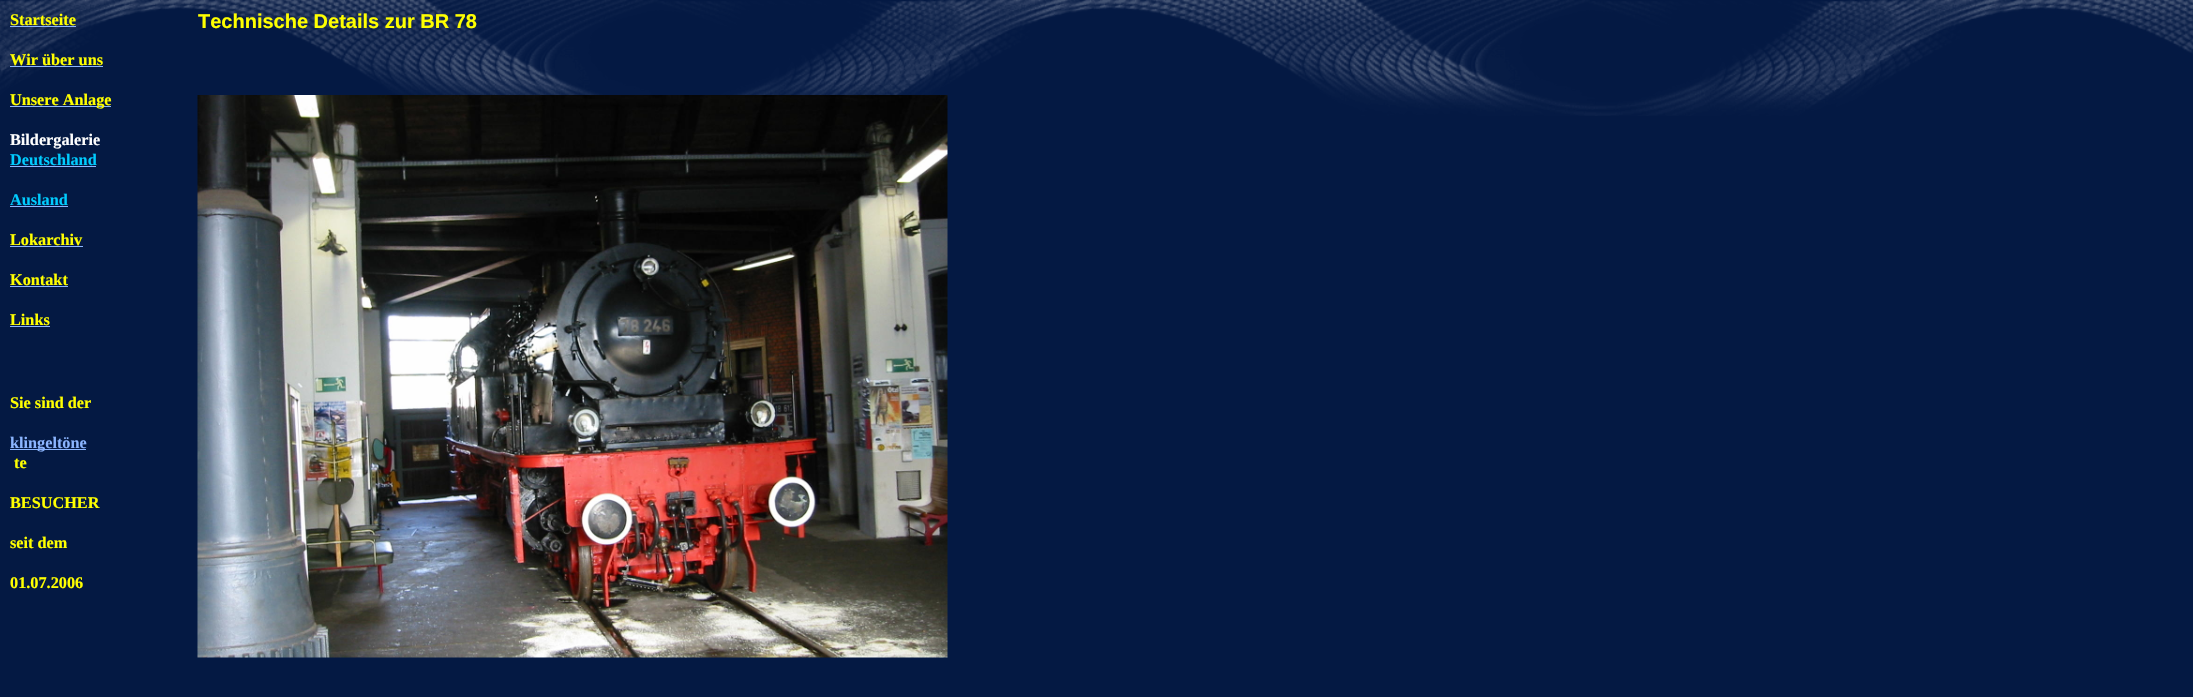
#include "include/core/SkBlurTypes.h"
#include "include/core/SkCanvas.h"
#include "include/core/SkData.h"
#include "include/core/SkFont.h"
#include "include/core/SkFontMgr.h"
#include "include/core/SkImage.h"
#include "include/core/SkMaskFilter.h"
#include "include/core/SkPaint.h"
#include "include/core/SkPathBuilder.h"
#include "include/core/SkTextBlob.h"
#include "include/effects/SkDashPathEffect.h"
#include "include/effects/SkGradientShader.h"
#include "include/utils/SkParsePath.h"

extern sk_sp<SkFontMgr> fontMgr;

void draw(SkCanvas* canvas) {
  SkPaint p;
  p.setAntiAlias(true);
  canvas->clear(SkColorSetRGB(4, 25, 67));
  canvas->drawImageRect(SkImages::DeferredFromEncodedData(SkData::MakeFromFileName("images/1.png")), SkRect::MakeLTRB(0, 0, 2193, 116), SkSamplingOptions());
  p.setColor(SkColorSetRGB(139, 181, 255));
  canvas->drawRect(SkRect::MakeLTRB(10, 26, 76, 27), p);
  canvas->drawRect(SkRect::MakeLTRB(10, 66, 103, 67), p);
  canvas->drawRect(SkRect::MakeLTRB(10, 106, 111, 107), p);
  canvas->drawRect(SkRect::MakeLTRB(10, 166, 96, 167), p);
  canvas->drawRect(SkRect::MakeLTRB(10, 206, 68, 207), p);
  canvas->drawRect(SkRect::MakeLTRB(10, 246, 83, 247), p);
  canvas->drawRect(SkRect::MakeLTRB(10, 286, 68, 287), p);
  canvas->drawRect(SkRect::MakeLTRB(10, 326, 50, 327), p);
  canvas->drawRect(SkRect::MakeLTRB(10, 449, 86, 450), p);
  canvas->drawImageRect(SkImages::DeferredFromEncodedData(SkData::MakeFromFileName("images/2.png")), SkRect::MakeLTRB(197, 95, 948, 658), SkSamplingOptions());
  SkFont font1(fontMgr->matchFamilyStyle("Liberation Serif", SkFontStyle::Bold()), 16.25f);
  font1.setSubpixel(true);
  p.setColor(SkColorSetRGB(255, 255, 0));
  canvas->drawString("Startseite", 10, 25, font1, p);
  canvas->drawString("Wir über uns", 10, 65, font1, p);
  canvas->drawString("Unsere Anlage", 10, 105, font1, p);
  p.setColor(SK_ColorWHITE);
  canvas->drawString("Bildergalerie", 10, 145, font1, p);
  p.setColor(SkColorSetRGB(0, 204, 255));
  canvas->drawString("Deutschland", 10, 165, font1, p);
  canvas->drawString("Ausland", 10, 205, font1, p);
  p.setColor(SkColorSetRGB(255, 255, 0));
  canvas->drawString("Lokarchiv", 10, 245, font1, p);
  canvas->drawString("Kontakt", 10, 285, font1, p);
  canvas->drawString("Links", 10, 325, font1, p);
  canvas->drawString("Sie sind der", 10, 408, font1, p);
  p.setColor(SkColorSetRGB(139, 181, 255));
  canvas->drawString("klingeltöne", 10, 448, font1, p);
  p.setColor(SkColorSetRGB(255, 255, 0));
  canvas->drawString("te", 14, 468, font1, p);
  canvas->drawString("BESUCHER", 10, 508, font1, p);
  canvas->drawString("seit dem", 10, 548, font1, p);
  canvas->drawString("01.07.2006", 10, 588, font1, p);
  SkFont font2(fontMgr->matchFamilyStyle("Liberation Sans", SkFontStyle::Bold()), 20);
  font2.setSubpixel(true);
  canvas->drawString("Technische Details zur BR 78", 198, 28, font2, p);
}
